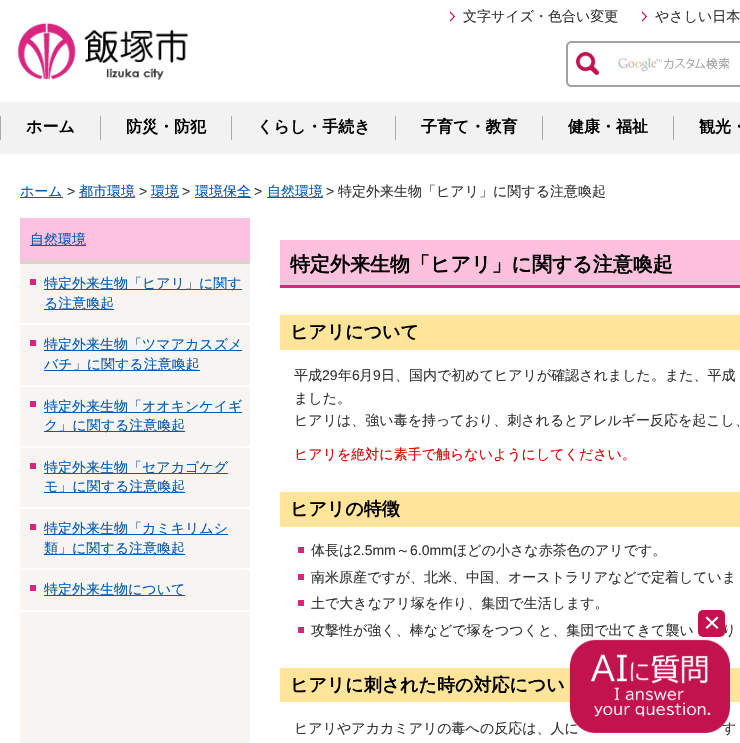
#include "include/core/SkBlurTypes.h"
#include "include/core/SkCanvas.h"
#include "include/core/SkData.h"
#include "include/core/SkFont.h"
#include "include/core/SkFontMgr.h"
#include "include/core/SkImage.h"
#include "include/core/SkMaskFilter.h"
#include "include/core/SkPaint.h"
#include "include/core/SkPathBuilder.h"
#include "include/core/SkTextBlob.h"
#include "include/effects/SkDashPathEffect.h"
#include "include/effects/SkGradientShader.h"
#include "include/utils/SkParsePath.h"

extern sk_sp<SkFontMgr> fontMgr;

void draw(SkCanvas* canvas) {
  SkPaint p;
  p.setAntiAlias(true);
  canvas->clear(SK_ColorWHITE);
  canvas->drawImageRect(SkImages::DeferredFromEncodedData(SkData::MakeFromFileName("images/1.png")), SkRect::MakeLTRB(450, 11, 455, 22), SkSamplingOptions());
  canvas->drawImageRect(SkImages::DeferredFromEncodedData(SkData::MakeFromFileName("images/1.png")), SkRect::MakeLTRB(642, 11, 647, 22), SkSamplingOptions());
  canvas->drawImageRect(SkImages::DeferredFromEncodedData(SkData::MakeFromFileName("images/2.png")), SkRect::MakeLTRB(618, 58, 730, 72), SkSamplingOptions());
  p.setStyle(SkPaint::kStroke_Style);
  p.setStrokeWidth(2);
  p.setColor(SkColorSetRGB(161, 161, 161));
  canvas->drawPath(SkPathBuilder().moveTo(571, 42).lineTo(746, 42).lineTo(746, 86).lineTo(571, 86).cubicTo(569, 86, 567, 84, 567, 82).lineTo(567, 46).cubicTo(567, 44, 569, 42, 571, 42).close().detach(), p);
  canvas->drawImageRect(SkImages::DeferredFromEncodedData(SkData::MakeFromFileName("images/3.png")), SkRect::MakeLTRB(576, 52, 599, 75), SkSamplingOptions());
  canvas->drawImageRect(SkImages::DeferredFromEncodedData(SkData::MakeFromFileName("images/4.png")), SkRect::MakeLTRB(10, 18, 188, 80), SkSamplingOptions());
  p.setStyle(SkPaint::kFill_Style);
  p.setColor(SkColorSetRGB(242, 242, 242));
  canvas->drawRect(SkRect::MakeLTRB(0, 102, 740, 154), p);
  p.setColor(SkColorSetRGB(170, 170, 170));
  canvas->drawRect(SkRect::MakeLTRB(0, 116, 1, 140), p);
  canvas->drawRect(SkRect::MakeLTRB(100, 116, 101, 140), p);
  canvas->drawRect(SkRect::MakeLTRB(231, 116, 232, 140), p);
  canvas->drawRect(SkRect::MakeLTRB(395, 116, 396, 140), p);
  canvas->drawRect(SkRect::MakeLTRB(542, 116, 543, 140), p);
  canvas->drawRect(SkRect::MakeLTRB(673, 116, 674, 140), p);
  p.setColor(SkColorSetRGB(0, 89, 178));
  canvas->drawRect(SkRect::MakeLTRB(20, 197, 63, 198), p);
  canvas->drawRect(SkRect::MakeLTRB(79, 197, 135, 198), p);
  canvas->drawRect(SkRect::MakeLTRB(151, 197, 179, 198), p);
  canvas->drawRect(SkRect::MakeLTRB(195, 197, 251, 198), p);
  canvas->drawRect(SkRect::MakeLTRB(267, 197, 323, 198), p);
  p.setColor(SkColorSetRGB(247, 244, 242));
  canvas->drawRect(SkRect::MakeLTRB(20, 264, 250, 743), p);
  p.setColor(SkColorSetRGB(253, 193, 225));
  canvas->drawRect(SkRect::MakeLTRB(20, 218, 250, 260), p);
  p.setColor(SkColorSetRGB(222, 210, 203));
  canvas->drawRect(SkRect::MakeLTRB(20, 260, 250, 264), p);
  p.setColor(SkColorSetRGB(0, 89, 178));
  canvas->drawRect(SkRect::MakeLTRB(30, 245, 86, 246), p);
  p.setColor(SkColorSetRGB(217, 37, 128));
  canvas->drawRect(SkRect::MakeLTRB(30, 279, 36, 285), p);
  p.setColor(SK_ColorWHITE);
  canvas->drawRect(SkRect::MakeLTRB(20, 323, 250, 325), p);
  p.setColor(SkColorSetRGB(0, 89, 178));
  canvas->drawRect(SkRect::MakeLTRB(44, 289, 242, 290), p);
  canvas->drawRect(SkRect::MakeLTRB(44, 309, 114, 310), p);
  p.setColor(SkColorSetRGB(217, 37, 128));
  canvas->drawRect(SkRect::MakeLTRB(30, 340, 36, 346), p);
  p.setColor(SK_ColorWHITE);
  canvas->drawRect(SkRect::MakeLTRB(20, 385, 250, 387), p);
  p.setColor(SkColorSetRGB(0, 89, 178));
  canvas->drawRect(SkRect::MakeLTRB(44, 350, 242, 351), p);
  canvas->drawRect(SkRect::MakeLTRB(44, 370, 200, 371), p);
  p.setColor(SkColorSetRGB(217, 37, 128));
  canvas->drawRect(SkRect::MakeLTRB(30, 401, 36, 407), p);
  p.setColor(SK_ColorWHITE);
  canvas->drawRect(SkRect::MakeLTRB(20, 446, 250, 448), p);
  p.setColor(SkColorSetRGB(0, 89, 178));
  canvas->drawRect(SkRect::MakeLTRB(44, 412, 242, 413), p);
  canvas->drawRect(SkRect::MakeLTRB(44, 431, 185, 432), p);
  p.setColor(SkColorSetRGB(217, 37, 128));
  canvas->drawRect(SkRect::MakeLTRB(30, 463, 36, 469), p);
  p.setColor(SK_ColorWHITE);
  canvas->drawRect(SkRect::MakeLTRB(20, 507, 250, 509), p);
  p.setColor(SkColorSetRGB(0, 89, 178));
  canvas->drawRect(SkRect::MakeLTRB(44, 473, 228, 474), p);
  canvas->drawRect(SkRect::MakeLTRB(44, 492, 185, 493), p);
  p.setColor(SkColorSetRGB(217, 37, 128));
  canvas->drawRect(SkRect::MakeLTRB(30, 524, 36, 530), p);
  p.setColor(SK_ColorWHITE);
  canvas->drawRect(SkRect::MakeLTRB(20, 568, 250, 570), p);
  p.setColor(SkColorSetRGB(0, 89, 178));
  canvas->drawRect(SkRect::MakeLTRB(44, 534, 228, 535), p);
  canvas->drawRect(SkRect::MakeLTRB(44, 554, 185, 555), p);
  p.setColor(SkColorSetRGB(217, 37, 128));
  canvas->drawRect(SkRect::MakeLTRB(30, 585, 36, 591), p);
  p.setColor(SK_ColorWHITE);
  canvas->drawRect(SkRect::MakeLTRB(20, 610, 250, 612), p);
  p.setColor(SkColorSetRGB(0, 89, 178));
  canvas->drawRect(SkRect::MakeLTRB(44, 595, 185, 596), p);
  p.setColor(SkColorSetRGB(253, 193, 222));
  canvas->drawRect(SkRect::MakeLTRB(280, 240, 740, 285), p);
  p.setColor(SkColorSetRGB(217, 37, 128));
  canvas->drawRect(SkRect::MakeLTRB(280, 285, 740, 288), p);
  p.setColor(SkColorSetRGB(255, 229, 153));
  canvas->drawRect(SkRect::MakeLTRB(280, 315, 740, 350), p);
  canvas->drawRect(SkRect::MakeLTRB(280, 492, 740, 527), p);
  p.setColor(SkColorSetRGB(217, 37, 128));
  canvas->drawRect(SkRect::MakeLTRB(298, 547, 304, 553), p);
  canvas->drawRect(SkRect::MakeLTRB(298, 574, 304, 580), p);
  canvas->drawRect(SkRect::MakeLTRB(298, 600, 304, 606), p);
  canvas->drawRect(SkRect::MakeLTRB(298, 627, 304, 633), p);
  p.setColor(SkColorSetRGB(255, 229, 153));
  canvas->drawRect(SkRect::MakeLTRB(280, 668, 740, 702), p);
  p.setColor(SkColorSetRGB(194, 19, 78));
  canvas->drawRoundRect(SkRect::MakeLTRB(698, 610, 725, 637), 5, 5, p);
  p.setColor(SK_ColorWHITE);
  canvas->drawPath(SkPathBuilder().moveTo(707, 616.5f).lineTo(718.5f, 627.5f).lineTo(717, 629).lineTo(705.5f, 618).close().detach(), p);
  canvas->drawPath(SkPathBuilder().moveTo(705.5f, 627.5f).lineTo(717, 616.5f).lineTo(718.5f, 618).lineTo(707, 629).close().detach(), p);
  SkFont font1(fontMgr->matchFamilyStyle("WenQuanYi Zen Hei", SkFontStyle(500, SkFontStyle::kNormal_Width, SkFontStyle::kUpright_Slant)), 14);
  font1.setSubpixel(true);
  p.setColor(SkColorSetRGB(51, 51, 51));
  canvas->drawString("文字サイズ・色合い変更", 463, 21, font1, p);
  canvas->drawString("やさしい日本", 655, 21, font1, p);
  SkFont font2(fontMgr->matchFamilyStyle("WenQuanYi Zen Hei", SkFontStyle::Bold()), 16);
  font2.setSubpixel(true);
  p.setColor(SK_ColorBLACK);
  canvas->drawString("ホーム", 26, 132, font2, p);
  canvas->drawString("防災・防犯", 126, 132, font2, p);
  canvas->drawString("くらし・手続き", 257, 132, font2, p);
  canvas->drawString("子育て・教育", 421, 132, font2, p);
  canvas->drawString("健康・福祉", 568, 132, font2, p);
  canvas->drawString("観光・", 699, 132, font2, p);
  p.setColor(SkColorSetRGB(0, 89, 178));
  canvas->drawString("ホーム", 20, 196, font1, p);
  SkFont font3(fontMgr->matchFamilyStyle("Liberation Sans", SkFontStyle::Normal()), 14);
  font3.setSubpixel(true);
  p.setColor(SkColorSetRGB(51, 51, 51));
  canvas->drawString(">", 67, 196, font3, p);
  p.setColor(SkColorSetRGB(0, 89, 178));
  canvas->drawString("都市環境", 79, 196, font1, p);
  p.setColor(SkColorSetRGB(51, 51, 51));
  canvas->drawString(">", 139, 196, font3, p);
  p.setColor(SkColorSetRGB(0, 89, 178));
  canvas->drawString("環境", 151, 196, font1, p);
  p.setColor(SkColorSetRGB(51, 51, 51));
  canvas->drawString(">", 182, 196, font3, p);
  p.setColor(SkColorSetRGB(0, 89, 178));
  canvas->drawString("環境保全", 195, 196, font1, p);
  p.setColor(SkColorSetRGB(51, 51, 51));
  canvas->drawString(">", 254, 196, font3, p);
  p.setColor(SkColorSetRGB(0, 89, 178));
  canvas->drawString("自然環境", 267, 196, font1, p);
  p.setColor(SkColorSetRGB(51, 51, 51));
  canvas->drawString(">", 326, 196, font3, p);
  canvas->drawString("特定外来生物「ヒアリ」に関する注意喚起", 338, 196, font1, p);
  p.setColor(SkColorSetRGB(0, 89, 178));
  canvas->drawString("自然環境", 30, 244, font1, p);
  canvas->drawString("特定外来生物「ヒアリ」に関す", 44, 288, font1, p);
  canvas->drawString("る注意喚起", 44, 308, font1, p);
  canvas->drawString("特定外来生物「ツマアカスズメ", 44, 349, font1, p);
  canvas->drawString("バチ」に関する注意喚起", 44, 369, font1, p);
  canvas->drawString("特定外来生物「オオキンケイギ", 44, 411, font1, p);
  canvas->drawString("ク」に関する注意喚起", 44, 430, font1, p);
  canvas->drawString("特定外来生物「セアカゴケグ", 44, 472, font1, p);
  canvas->drawString("モ」に関する注意喚起", 44, 491, font1, p);
  canvas->drawString("特定外来生物「カミキリムシ", 44, 533, font1, p);
  canvas->drawString("類」に関する注意喚起", 44, 553, font1, p);
  canvas->drawString("特定外来生物について", 44, 594, font1, p);
  SkFont font4(fontMgr->matchFamilyStyle("WenQuanYi Zen Hei", SkFontStyle::Bold()), 20);
  font4.setSubpixel(true);
  p.setColor(SK_ColorBLACK);
  canvas->drawString("特定外来生物「ヒアリ」に関する注意喚起", 290, 271, font4, p);
  SkFont font5(fontMgr->matchFamilyStyle("WenQuanYi Zen Hei", SkFontStyle::Bold()), 18);
  font5.setSubpixel(true);
  canvas->drawString("ヒアリについて", 290, 338, font5, p);
  p.setColor(SkColorSetRGB(51, 51, 51));
  canvas->drawString("平成", 294, 380, font1, p);
  canvas->drawString("29", 322, 380, font3, p);
  canvas->drawString("年", 338, 380, font1, p);
  canvas->drawString("6", 352, 380, font3, p);
  canvas->drawString("月", 359, 380, font1, p);
  canvas->drawString("9", 373, 380, font3, p);
  canvas->drawString("日、国内で初めてヒアリが確認されました。また、平成", 381, 380, font1, p);
  canvas->drawString("ました。", 294, 403, font1, p);
  canvas->drawString("ヒアリは、強い毒を持っており、刺されるとアレルギー反応を起こし、", 294, 425, font1, p);
  p.setColor(SkColorSetRGB(217, 0, 0));
  canvas->drawString("ヒアリを絶対に素手で触らないようにしてください。", 294, 459, font1, p);
  p.setColor(SK_ColorBLACK);
  canvas->drawString("ヒアリの特徴", 290, 515, font5, p);
  p.setColor(SkColorSetRGB(51, 51, 51));
  canvas->drawString("体長は", 311, 555, font1, p);
  canvas->drawString("2.5mm", 353, 555, font3, p);
  canvas->drawString("～", 396, 555, font1, p);
  canvas->drawString("6.0mm", 410, 555, font3, p);
  canvas->drawString("ほどの小さな赤茶色のアリです。", 453, 555, font1, p);
  canvas->drawString("南米原産ですが、北米、中国、オーストラリアなどで定着していま", 311, 582, font1, p);
  canvas->drawString("土で大きなアリ塚を作り、集団で生活します。", 311, 608, font1, p);
  canvas->drawString("攻撃性が強く、棒などで塚をつつくと、集団で出てきて襲い", 311, 635, font1, p);
  canvas->drawString("り", 722, 635, font1, p);
  p.setColor(SK_ColorBLACK);
  canvas->drawString("ヒアリに刺された時の対応につい", 290, 691, font5, p);
  p.setColor(SkColorSetRGB(51, 51, 51));
  canvas->drawString("ヒアリやアカカミアリの毒への反応は、人に", 294, 733, font1, p);
  canvas->drawString("す", 722, 733, font1, p);
  canvas->drawImageRect(SkImages::DeferredFromEncodedData(SkData::MakeFromFileName("images/5.png")), SkRect::MakeLTRB(570, 639, 730, 733), SkSamplingOptions());
}
